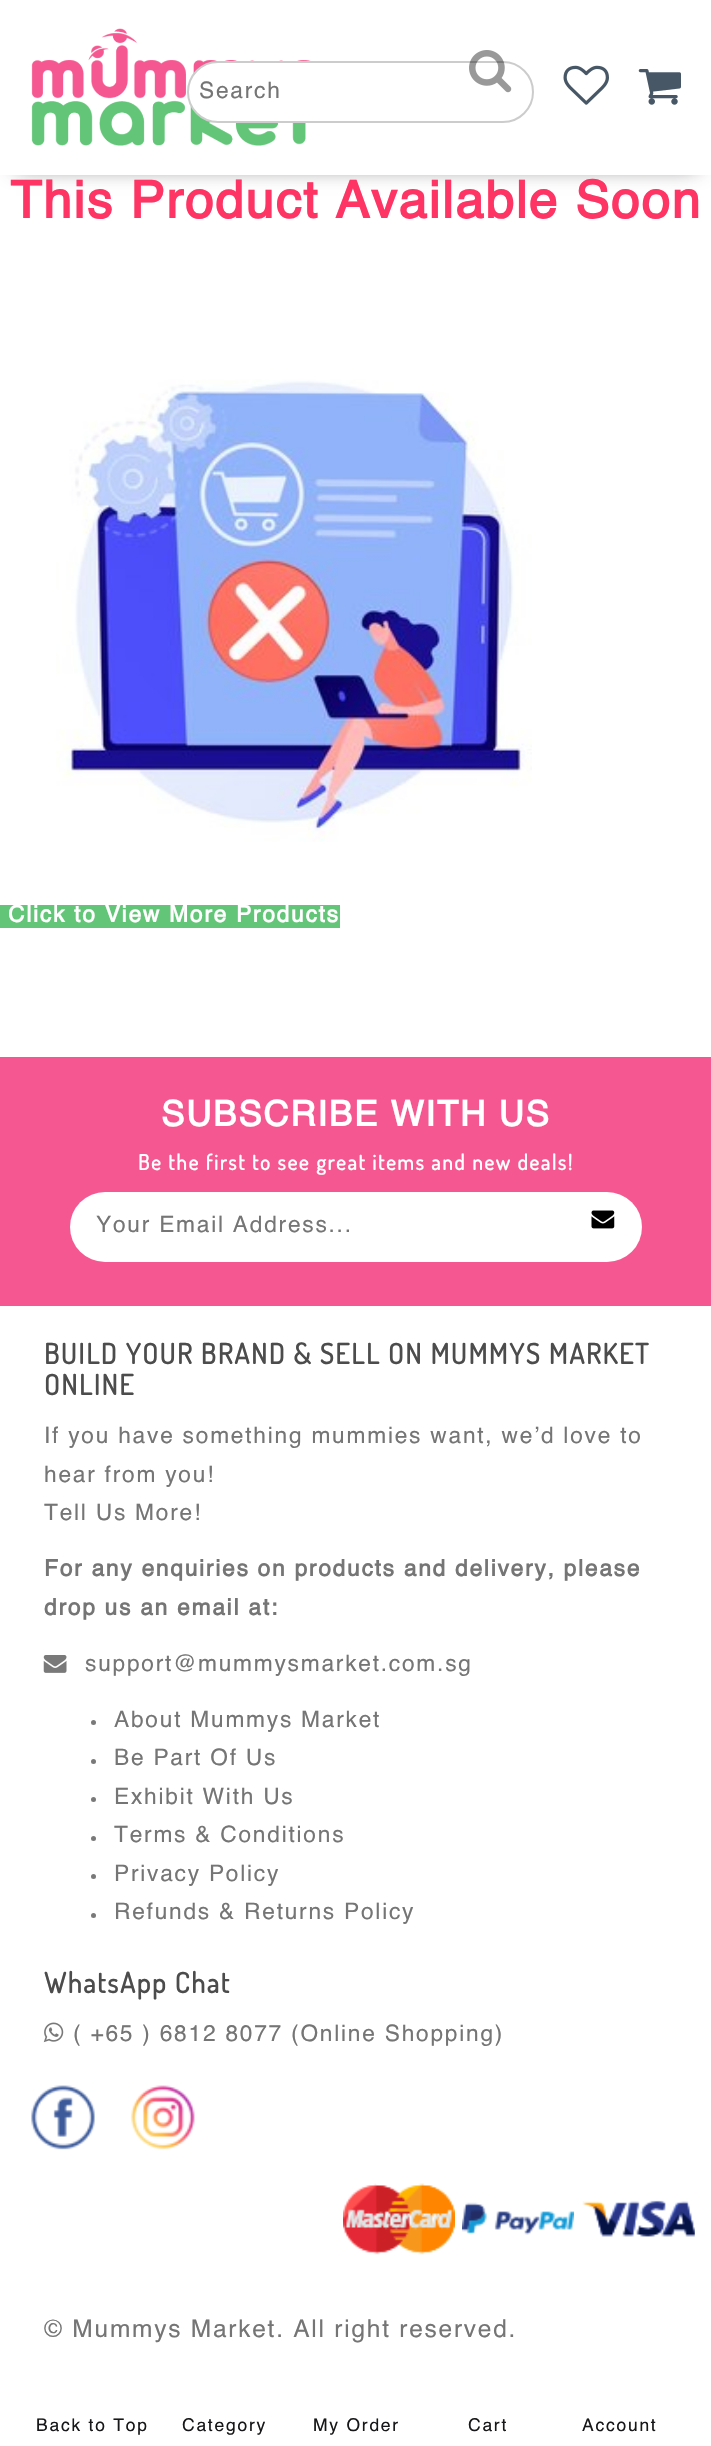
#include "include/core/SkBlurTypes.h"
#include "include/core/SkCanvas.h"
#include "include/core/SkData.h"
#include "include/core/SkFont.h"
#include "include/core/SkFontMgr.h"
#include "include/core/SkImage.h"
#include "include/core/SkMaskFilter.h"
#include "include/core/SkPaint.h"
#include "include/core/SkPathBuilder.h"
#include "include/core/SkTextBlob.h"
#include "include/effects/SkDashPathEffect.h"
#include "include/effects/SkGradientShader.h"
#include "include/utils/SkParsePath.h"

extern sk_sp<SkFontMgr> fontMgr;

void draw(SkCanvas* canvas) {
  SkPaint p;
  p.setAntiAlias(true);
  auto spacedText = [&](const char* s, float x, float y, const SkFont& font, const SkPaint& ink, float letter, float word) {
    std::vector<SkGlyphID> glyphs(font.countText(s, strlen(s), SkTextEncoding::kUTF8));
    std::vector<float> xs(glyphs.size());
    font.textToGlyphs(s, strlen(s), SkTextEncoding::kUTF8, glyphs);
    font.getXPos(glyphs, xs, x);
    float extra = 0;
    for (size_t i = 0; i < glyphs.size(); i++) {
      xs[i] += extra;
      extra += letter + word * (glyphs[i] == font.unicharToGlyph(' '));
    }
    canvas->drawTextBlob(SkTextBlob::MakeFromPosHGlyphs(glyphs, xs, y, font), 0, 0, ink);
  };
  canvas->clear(SK_ColorWHITE);
  p.setColor(SkColorSetARGB(191, 0, 0, 0));
  p.setMaskFilter(SkMaskFilter::MakeBlur(kNormal_SkBlurStyle, 10.5f));
  canvas->drawRect(SkRect::MakeLTRB(16, 21, 697, 165), p);
  p.setMaskFilter(nullptr);
  p.setColor(SK_ColorWHITE);
  canvas->drawRect(SkRect::MakeLTRB(0, 0, 711, 175), p);
  canvas->drawImageRect(SkImages::DeferredFromEncodedData(SkData::MakeFromFileName("images/1.png")), SkRect::MakeLTRB(31, 28, 311, 146), SkSamplingOptions());
  canvas->drawImageRect(SkImages::DeferredFromEncodedData(SkData::MakeFromFileName("images/2.png")), SkRect::MakeLTRB(563, 65, 609, 105), SkSamplingOptions());
  canvas->drawImageRect(SkImages::DeferredFromEncodedData(SkData::MakeFromFileName("images/3.png")), SkRect::MakeLTRB(638, 69, 681, 105), SkSamplingOptions());
  canvas->drawRoundRect(SkRect::MakeLTRB(188, 62, 533, 122), 30, 30, p);
  p.setStyle(SkPaint::kStroke_Style);
  p.setStrokeWidth(2);
  p.setColor(SkColorSetRGB(204, 204, 204));
  canvas->drawRoundRect(SkRect::MakeLTRB(188, 62, 533, 122), 30, 30, p);
  canvas->drawImageRect(SkImages::DeferredFromEncodedData(SkData::MakeFromFileName("images/4.png")), SkRect::MakeLTRB(469, 50, 512, 93), SkSamplingOptions());
  canvas->drawImageRect(SkImages::DeferredFromEncodedData(SkData::MakeFromFileName("images/5.png")), SkRect::MakeLTRB(56, 379, 532, 842), SkSamplingOptions());
  p.setStyle(SkPaint::kFill_Style);
  p.setColor(SkColorSetRGB(98, 197, 119));
  canvas->drawRect(SkRect::MakeLTRB(0, 905, 340, 928), p);
  p.setColor(SkColorSetRGB(245, 88, 144));
  canvas->drawRect(SkRect::MakeLTRB(0, 1057, 711, 1306), p);
  p.setColor(SK_ColorWHITE);
  canvas->drawRoundRect(SkRect::MakeLTRB(70, 1192, 642, 1262), 35, 35, p);
  canvas->drawImageRect(SkImages::DeferredFromEncodedData(SkData::MakeFromFileName("images/6.png")), SkRect::MakeLTRB(591, 1210, 615, 1229), SkSamplingOptions());
  canvas->drawImageRect(SkImages::DeferredFromEncodedData(SkData::MakeFromFileName("images/7.png")), SkRect::MakeLTRB(43, 1655, 67, 1673), SkSamplingOptions());
  p.setColor(SkColorSetRGB(121, 121, 121));
  canvas->drawCircle(93.5f, 1722.5f, 2.5f, p);
  canvas->drawCircle(93.5f, 1761.5f, 2.5f, p);
  canvas->drawCircle(93.5f, 1799.5f, 2.5f, p);
  canvas->drawCircle(93.5f, 1838.5f, 2.5f, p);
  canvas->drawCircle(93.5f, 1876.5f, 2.5f, p);
  canvas->drawCircle(93.5f, 1915.5f, 2.5f, p);
  canvas->drawImageRect(SkImages::DeferredFromEncodedData(SkData::MakeFromFileName("images/8.png")), SkRect::MakeLTRB(43, 2022, 64, 2043), SkSamplingOptions());
  canvas->drawImageRect(SkImages::DeferredFromEncodedData(SkData::MakeFromFileName("images/9.png")), SkRect::MakeLTRB(31, 2085, 95, 2150), SkSamplingOptions());
  canvas->drawImageRect(SkImages::DeferredFromEncodedData(SkData::MakeFromFileName("images/10.png")), SkRect::MakeLTRB(130, 2085, 195, 2150), SkSamplingOptions());
  canvas->drawImageRect(SkImages::DeferredFromEncodedData(SkData::MakeFromFileName("images/11.png")), SkRect::MakeLTRB(343, 2183, 455, 2255), SkSamplingOptions());
  canvas->drawImageRect(SkImages::DeferredFromEncodedData(SkData::MakeFromFileName("images/12.png")), SkRect::MakeLTRB(462, 2202, 574, 2235), SkSamplingOptions());
  canvas->drawImageRect(SkImages::DeferredFromEncodedData(SkData::MakeFromFileName("images/13.png")), SkRect::MakeLTRB(582, 2200, 695, 2237), SkSamplingOptions());
  SkFont font1(fontMgr->matchFamilyStyle("Helvetica", SkFontStyle::Normal()), 22.75f);
  font1.setSubpixel(true);
  p.setColor(SkColorSetRGB(117, 117, 117));
  spacedText("Search", 199, 98, font1, p, 1.75f, 0);
  SkFont font2(fontMgr->matchFamilyStyle("Helvetica", SkFontStyle::Normal()), 17.5f);
  font2.setSubpixel(true);
  p.setColor(SkColorSetRGB(23, 22, 24));
  spacedText("Back to Top", 36, 2431, font2, p, 1.75f, 0);
  spacedText("Category", 182, 2431, font2, p, 1.75f, 0);
  spacedText("My Order", 313, 2431, font2, p, 1.75f, 0);
  spacedText("Cart", 468, 2431, font2, p, 1.75f, 0);
  spacedText("Account", 582, 2431, font2, p, 1.75f, 0);
  SkFont font3(fontMgr->matchFamilyStyle("Helvetica", SkFontStyle::Bold()), 51.3f);
  font3.setSubpixel(true);
  p.setColor(SkColorSetRGB(254, 52, 100));
  spacedText("This Product Available Soon", 10, 218, font3, p, 1.75f, 0);
  SkFont font4(fontMgr->matchFamilyStyle("Helvetica", SkFontStyle::Bold()), 22.75f);
  font4.setSubpixel(true);
  p.setColor(SK_ColorWHITE);
  spacedText("Click to View More Products", 8, 922, font4, p, 1.75f, 0);
  SkFont font5(fontMgr->matchFamilyStyle("Helvetica", SkFontStyle::Bold()), 35);
  font5.setSubpixel(true);
  spacedText("SUBSCRIBE WITH US", 161, 1126, font5, p, 1.75f, 0);
  SkFont font6(fontMgr->matchFamilyStyle("Dosis", SkFontStyle::Bold()), 21);
  font6.setSubpixel(true);
  spacedText("Be the first to see great items and new deals!", 138, 1170, font6, p, 1.75f, 0);
  p.setColor(SkColorSetRGB(117, 117, 117));
  spacedText("Your Email Address...", 96, 1232, font1, p, 1.75f, 0);
  SkFont font7(fontMgr->matchFamilyStyle("Dosis", SkFontStyle::Bold()), 28);
  font7.setSubpixel(true);
  p.setColor(SkColorSetRGB(76, 76, 76));
  spacedText("BUILD YOUR BRAND & SELL ON MUMMYS MARKET", 44, 1364, font7, p, 1.75f, 0);
  spacedText("ONLINE", 44, 1395, font7, p, 1.75f, 0);
  p.setColor(SkColorSetRGB(117, 117, 117));
  spacedText("If you have something mummies want, we’d love to", 44, 1443, font1, p, 1.75f, 0);
  spacedText("hear from you!", 44, 1482, font1, p, 1.75f, 0);
  spacedText("Tell Us More!", 44, 1520, font1, p, 1.75f, 0);
  spacedText("For any enquiries on products and delivery, please", 44, 1576, font4, p, 1.75f, 0);
  spacedText("drop us an email at:", 44, 1615, font4, p, 1.75f, 0);
  spacedText("support@mummysmarket.com.sg", 85, 1671, font1, p, 1.75f, 0);
  spacedText("About Mummys Market", 114, 1727, font1, p, 1.75f, 0);
  spacedText("Be Part Of Us", 114, 1765, font1, p, 1.75f, 0);
  spacedText("Exhibit With Us", 114, 1804, font1, p, 1.75f, 0);
  spacedText("Terms & Conditions", 114, 1842, font1, p, 1.75f, 0);
  spacedText("Privacy Policy", 114, 1881, font1, p, 1.75f, 0);
  spacedText("Refunds & Returns Policy", 114, 1919, font1, p, 1.75f, 0);
  p.setColor(SkColorSetRGB(76, 76, 76));
  spacedText("WhatsApp Chat", 44, 1993, font7, p, 1.75f, 0);
  p.setColor(SkColorSetRGB(117, 117, 117));
  spacedText("( +65 ) 6812 8077 (Online Shopping)", 73, 2041, font1, p, 1.75f, 0);
  SkFont font8(fontMgr->matchFamilyStyle("Helvetica", SkFontStyle::Normal()), 24.5f);
  font8.setSubpixel(true);
  spacedText("© Mummys Market. All right reserved.", 44, 2337, font8, p, 1.75f, 0);
}
